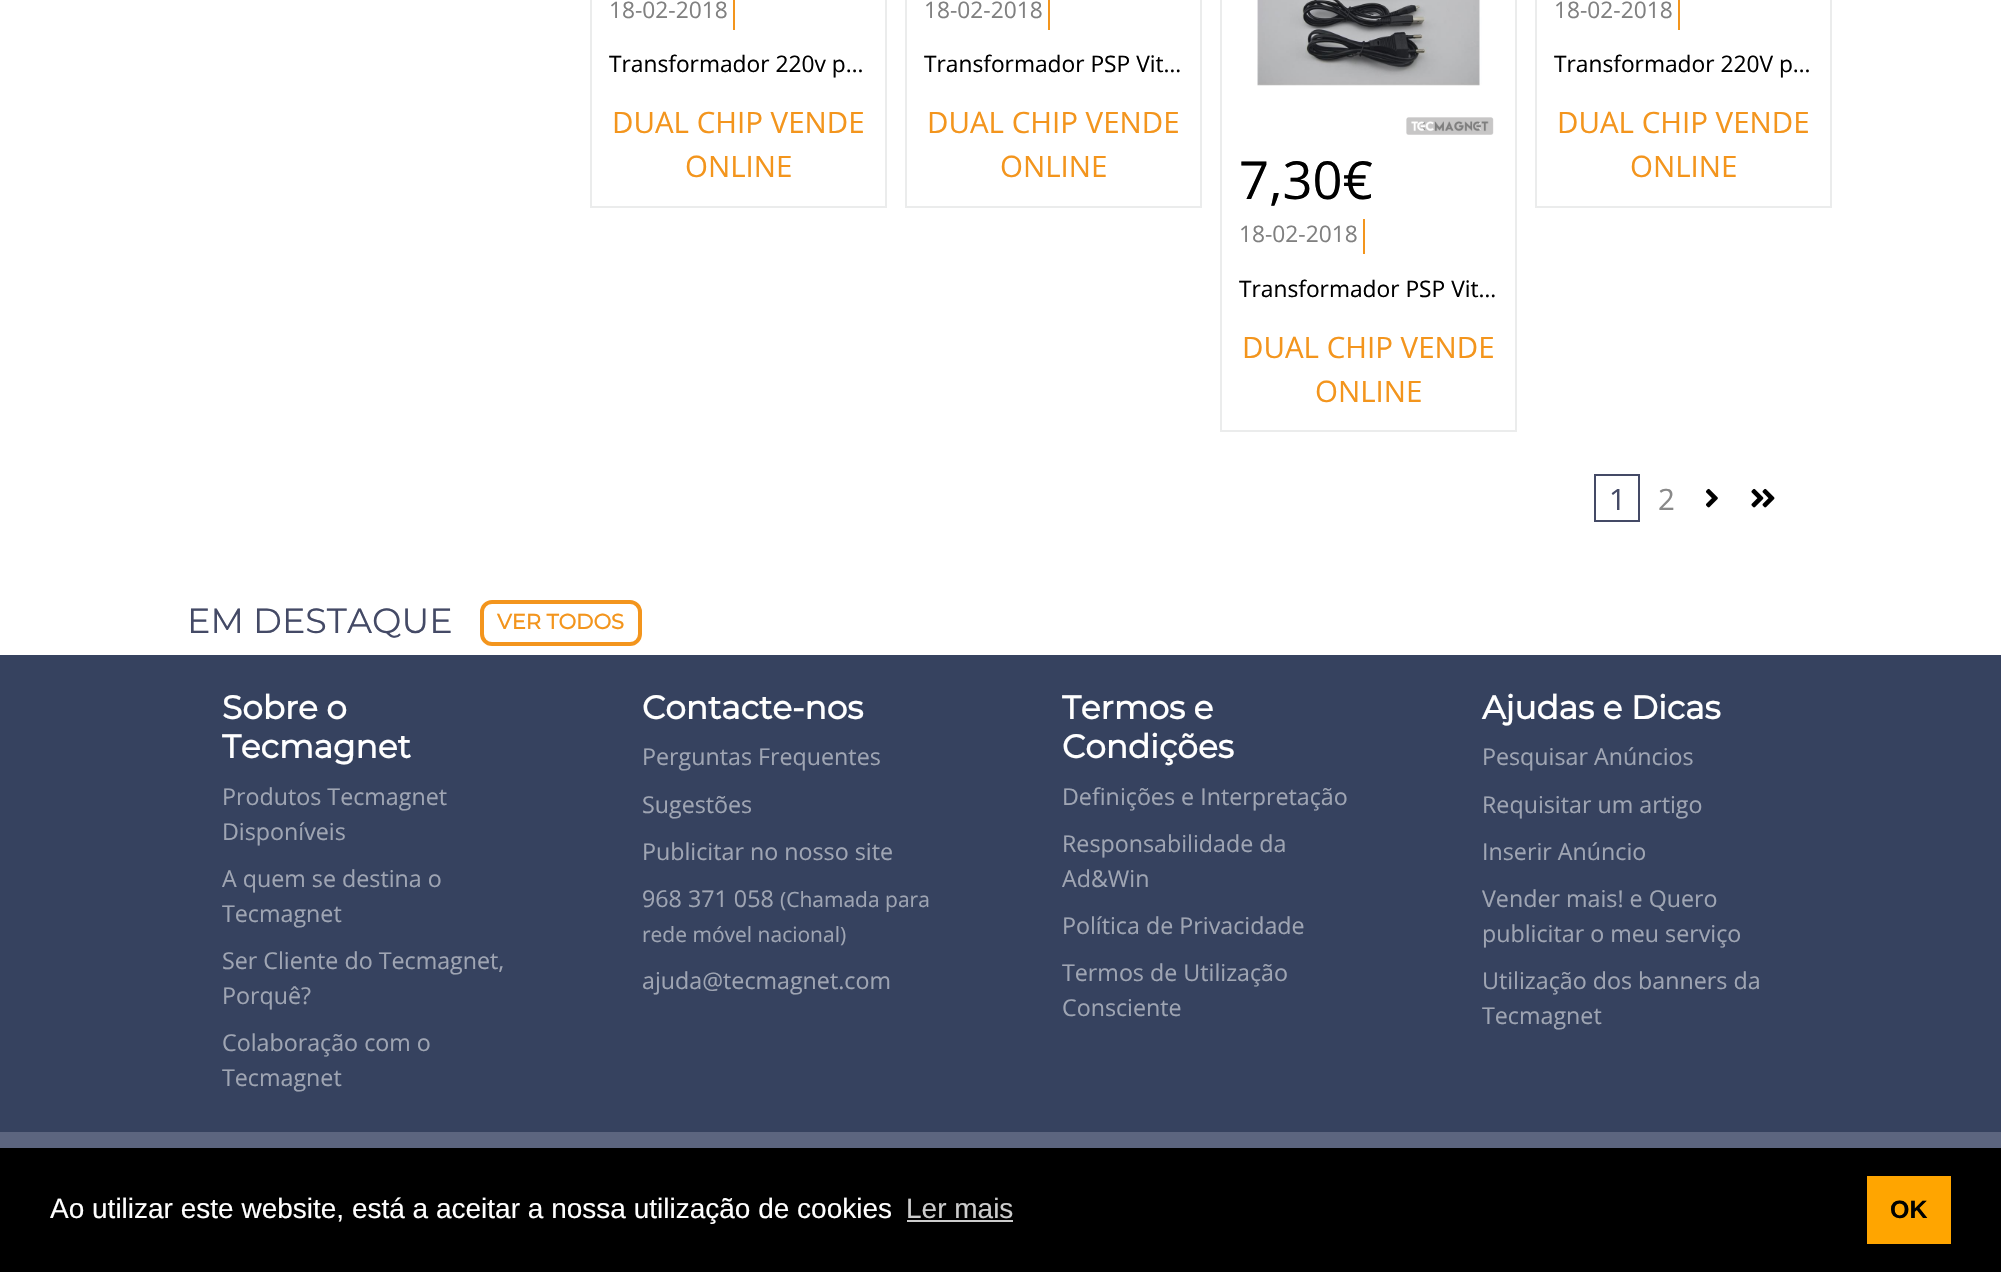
#include "include/core/SkBlurTypes.h"
#include "include/core/SkCanvas.h"
#include "include/core/SkData.h"
#include "include/core/SkFont.h"
#include "include/core/SkFontMgr.h"
#include "include/core/SkImage.h"
#include "include/core/SkMaskFilter.h"
#include "include/core/SkPaint.h"
#include "include/core/SkPathBuilder.h"
#include "include/core/SkTextBlob.h"
#include "include/effects/SkDashPathEffect.h"
#include "include/effects/SkGradientShader.h"
#include "include/utils/SkParsePath.h"

extern sk_sp<SkFontMgr> fontMgr;

void draw(SkCanvas* canvas) {
  SkPaint p;
  p.setAntiAlias(true);
  canvas->clear(SK_ColorWHITE);
  p.setStyle(SkPaint::kStroke_Style);
  p.setStrokeWidth(2);
  p.setColor(SkColorSetRGB(235, 236, 236));
  canvas->drawRect(SkRect::MakeLTRB(591, -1, 886, 207), p);
  p.setStyle(SkPaint::kFill_Style);
  p.setColor(SkColorSetRGB(243, 149, 29));
  canvas->drawRect(SkRect::MakeLTRB(733, 0, 735, 30), p);
  p.setStyle(SkPaint::kStroke_Style);
  p.setColor(SkColorSetRGB(235, 236, 236));
  canvas->drawRect(SkRect::MakeLTRB(906, -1, 1201, 207), p);
  p.setStyle(SkPaint::kFill_Style);
  p.setColor(SkColorSetRGB(243, 149, 29));
  canvas->drawRect(SkRect::MakeLTRB(1048, 0, 1050, 30), p);
  p.setStyle(SkPaint::kStroke_Style);
  p.setColor(SkColorSetRGB(235, 236, 236));
  canvas->drawRect(SkRect::MakeLTRB(1536, -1, 1831, 207), p);
  p.setStyle(SkPaint::kFill_Style);
  p.setColor(SkColorSetRGB(243, 149, 29));
  canvas->drawRect(SkRect::MakeLTRB(1678, 0, 1680, 30), p);
  p.setStyle(SkPaint::kStroke_Style);
  p.setColor(SkColorSetRGB(235, 236, 236));
  canvas->drawRect(SkRect::MakeLTRB(1221, -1, 1516, 431), p);
  canvas->drawImageRect(SkImages::DeferredFromEncodedData(SkData::MakeFromFileName("images/1.png")), SkRect::MakeLTRB(1257, 0, 1494, 135), SkSamplingOptions());
  p.setStyle(SkPaint::kFill_Style);
  p.setColor(SkColorSetRGB(243, 149, 29));
  canvas->drawRect(SkRect::MakeLTRB(1363, 219, 1365, 254), p);
  p.setStyle(SkPaint::kStroke_Style);
  p.setColor(SkColorSetRGB(68, 74, 102));
  canvas->drawRect(SkRect::MakeLTRB(1595, 475, 1639, 521), p);
  canvas->drawImageRect(SkImages::DeferredFromEncodedData(SkData::MakeFromFileName("images/2.png")), SkRect::MakeLTRB(1706, 488, 1718, 508), SkSamplingOptions());
  canvas->drawImageRect(SkImages::DeferredFromEncodedData(SkData::MakeFromFileName("images/3.png")), SkRect::MakeLTRB(1751, 488, 1775, 508), SkSamplingOptions());
  p.setStrokeWidth(4);
  p.setColor(SkColorSetRGB(243, 149, 29));
  canvas->drawRoundRect(SkRect::MakeLTRB(482, 602, 640, 644), 10, 10, p);
  p.setStyle(SkPaint::kFill_Style);
  p.setColor(SkColorSetRGB(54, 66, 95));
  canvas->drawRect(SkRect::MakeLTRB(0, 655, 2001, 1132), p);
  p.setColor(SkColorSetRGB(92, 101, 127));
  canvas->drawRect(SkRect::MakeLTRB(0, 1132, 2001, 1148), p);
  p.setColor(SK_ColorBLACK);
  canvas->drawRect(SkRect::MakeLTRB(0, 1148, 2001, 1272), p);
  p.setColor(SkColorSetRGB(204, 204, 204));
  canvas->drawRect(SkRect::MakeLTRB(907, 1220, 1013, 1222), p);
  p.setColor(SkColorSetRGB(255, 165, 0));
  canvas->drawRect(SkRect::MakeLTRB(1867, 1176, 1951, 1244), p);
  SkFont font1(fontMgr->matchFamilyStyle("Open Sans", SkFontStyle::Normal()), 22.75f);
  font1.setSubpixel(true);
  p.setColor(SkColorSetRGB(128, 128, 128));
  canvas->drawString("18-02-2018", 609, 18, font1, p);
  p.setColor(SK_ColorBLACK);
  canvas->drawString("Transformador 220v p…", 609, 72, font1, p);
  SkFont font2(fontMgr->matchFamilyStyle("Open Sans", SkFontStyle::Normal()), 29.5f);
  font2.setSubpixel(true);
  p.setColor(SkColorSetRGB(243, 149, 29));
  canvas->drawString("DUAL CHIP VENDE", 612, 133, font2, p);
  canvas->drawString("ONLINE", 685, 177, font2, p);
  p.setColor(SkColorSetRGB(128, 128, 128));
  canvas->drawString("18-02-2018", 924, 18, font1, p);
  p.setColor(SK_ColorBLACK);
  canvas->drawString("Transformador PSP Vit…", 924, 72, font1, p);
  p.setColor(SkColorSetRGB(243, 149, 29));
  canvas->drawString("DUAL CHIP VENDE", 927, 133, font2, p);
  canvas->drawString("ONLINE", 1000, 177, font2, p);
  p.setColor(SkColorSetRGB(128, 128, 128));
  canvas->drawString("18-02-2018", 1554, 18, font1, p);
  p.setColor(SK_ColorBLACK);
  canvas->drawString("Transformador 220V p…", 1554, 72, font1, p);
  p.setColor(SkColorSetRGB(243, 149, 29));
  canvas->drawString("DUAL CHIP VENDE", 1557, 133, font2, p);
  canvas->drawString("ONLINE", 1630, 177, font2, p);
  SkFont font3(fontMgr->matchFamilyStyle("Open Sans", SkFontStyle::Normal()), 52.5f);
  font3.setSubpixel(true);
  p.setColor(SK_ColorBLACK);
  canvas->drawString("7,30€", 1239, 199, font3, p);
  p.setColor(SkColorSetRGB(128, 128, 128));
  canvas->drawString("18-02-2018", 1239, 242, font1, p);
  p.setColor(SK_ColorBLACK);
  canvas->drawString("Transformador PSP Vit…", 1239, 297, font1, p);
  p.setColor(SkColorSetRGB(243, 149, 29));
  canvas->drawString("DUAL CHIP VENDE", 1242, 358, font2, p);
  canvas->drawString("ONLINE", 1315, 402, font2, p);
  p.setColor(SkColorSetRGB(68, 74, 102));
  canvas->drawString("1", 1609, 510, font2, p);
  p.setColor(SkColorSetRGB(137, 137, 137));
  canvas->drawString("2", 1658, 510, font2, p);
  SkFont font4(fontMgr->matchFamilyStyle("Montserrat", SkFontStyle(100, SkFontStyle::kNormal_Width, SkFontStyle::kUpright_Slant)), 35);
  font4.setSubpixel(true);
  p.setColor(SkColorSetRGB(68, 74, 102));
  canvas->drawString("EM DESTAQUE", 187, 633, font4, p);
  SkFont font5(fontMgr->matchFamilyStyle("Montserrat", SkFontStyle::Bold()), 21);
  font5.setSubpixel(true);
  p.setColor(SkColorSetRGB(243, 149, 29));
  canvas->drawString("VER TODOS", 497, 629, font5, p);
  SkFont font6(fontMgr->matchFamilyStyle("Montserrat", SkFontStyle::Bold()), 32.75f);
  font6.setSubpixel(true);
  p.setColor(SK_ColorWHITE);
  canvas->drawString("Sobre o", 222, 719, font6, p);
  canvas->drawString("Tecmagnet", 222, 758, font6, p);
  SkFont font7(fontMgr->matchFamilyStyle("Open Sans", SkFontStyle::Normal()), 23.25f);
  font7.setSubpixel(true);
  p.setColor(SkColorSetRGB(159, 165, 179));
  canvas->drawString("Produtos Tecmagnet", 222, 805, font7, p);
  canvas->drawString("Disponíveis", 222, 840, font7, p);
  canvas->drawString("A quem se destina o", 222, 887, font7, p);
  canvas->drawString("Tecmagnet", 222, 922, font7, p);
  canvas->drawString("Ser Cliente do Tecmagnet,", 222, 969, font7, p);
  canvas->drawString("Porquê?", 222, 1004, font7, p);
  canvas->drawString("Colaboração com o", 222, 1051, font7, p);
  canvas->drawString("Tecmagnet", 222, 1086, font7, p);
  p.setColor(SK_ColorWHITE);
  canvas->drawString("Contacte-nos", 642, 719, font6, p);
  p.setColor(SkColorSetRGB(159, 165, 179));
  canvas->drawString("Perguntas Frequentes", 642, 765, font7, p);
  canvas->drawString("Sugestões", 642, 813, font7, p);
  canvas->drawString("Publicitar no nosso site", 642, 860, font7, p);
  canvas->drawString("968 371 058", 642, 907, font7, p);
  SkFont font8(fontMgr->matchFamilyStyle("Open Sans", SkFontStyle::Normal()), 21);
  font8.setSubpixel(true);
  canvas->drawString("(Chamada para", 780, 907, font8, p);
  canvas->drawString("rede móvel nacional)", 642, 942, font8, p);
  canvas->drawString("ajuda@tecmagnet.com", 642, 989, font7, p);
  p.setColor(SK_ColorWHITE);
  canvas->drawString("Termos e", 1062, 719, font6, p);
  canvas->drawString("Condições", 1062, 758, font6, p);
  p.setColor(SkColorSetRGB(159, 165, 179));
  canvas->drawString("Definições e Interpretação", 1062, 805, font7, p);
  canvas->drawString("Responsabilidade da", 1062, 852, font7, p);
  canvas->drawString("Ad&Win", 1062, 887, font7, p);
  canvas->drawString("Política de Privacidade", 1062, 934, font7, p);
  canvas->drawString("Termos de Utilização", 1062, 981, font7, p);
  canvas->drawString("Consciente", 1062, 1016, font7, p);
  p.setColor(SK_ColorWHITE);
  canvas->drawString("Ajudas e Dicas", 1482, 719, font6, p);
  p.setColor(SkColorSetRGB(159, 165, 179));
  canvas->drawString("Pesquisar Anúncios", 1482, 765, font7, p);
  canvas->drawString("Requisitar um artigo", 1482, 813, font7, p);
  canvas->drawString("Inserir Anúncio", 1482, 860, font7, p);
  canvas->drawString("Vender mais! e Quero", 1482, 907, font7, p);
  canvas->drawString("publicitar o meu serviço", 1482, 942, font7, p);
  canvas->drawString("Utilização dos banners da", 1482, 989, font7, p);
  canvas->drawString("Tecmagnet", 1482, 1024, font7, p);
  SkFont font9(fontMgr->matchFamilyStyle("Liberation Sans", SkFontStyle::Normal()), 28);
  font9.setSubpixel(true);
  p.setColor(SK_ColorWHITE);
  canvas->drawString("Ao utilizar este website, está a aceitar a nossa utilização de cookies", 50, 1218, font9, p);
  p.setColor(SkColorSetRGB(204, 204, 204));
  canvas->drawString("Ler mais", 906, 1218, font9, p);
  SkFont font10(fontMgr->matchFamilyStyle("Liberation Sans", SkFontStyle::Bold()), 25);
  font10.setSubpixel(true);
  p.setColor(SK_ColorBLACK);
  canvas->drawString("OK", 1890, 1218, font10, p);
}
